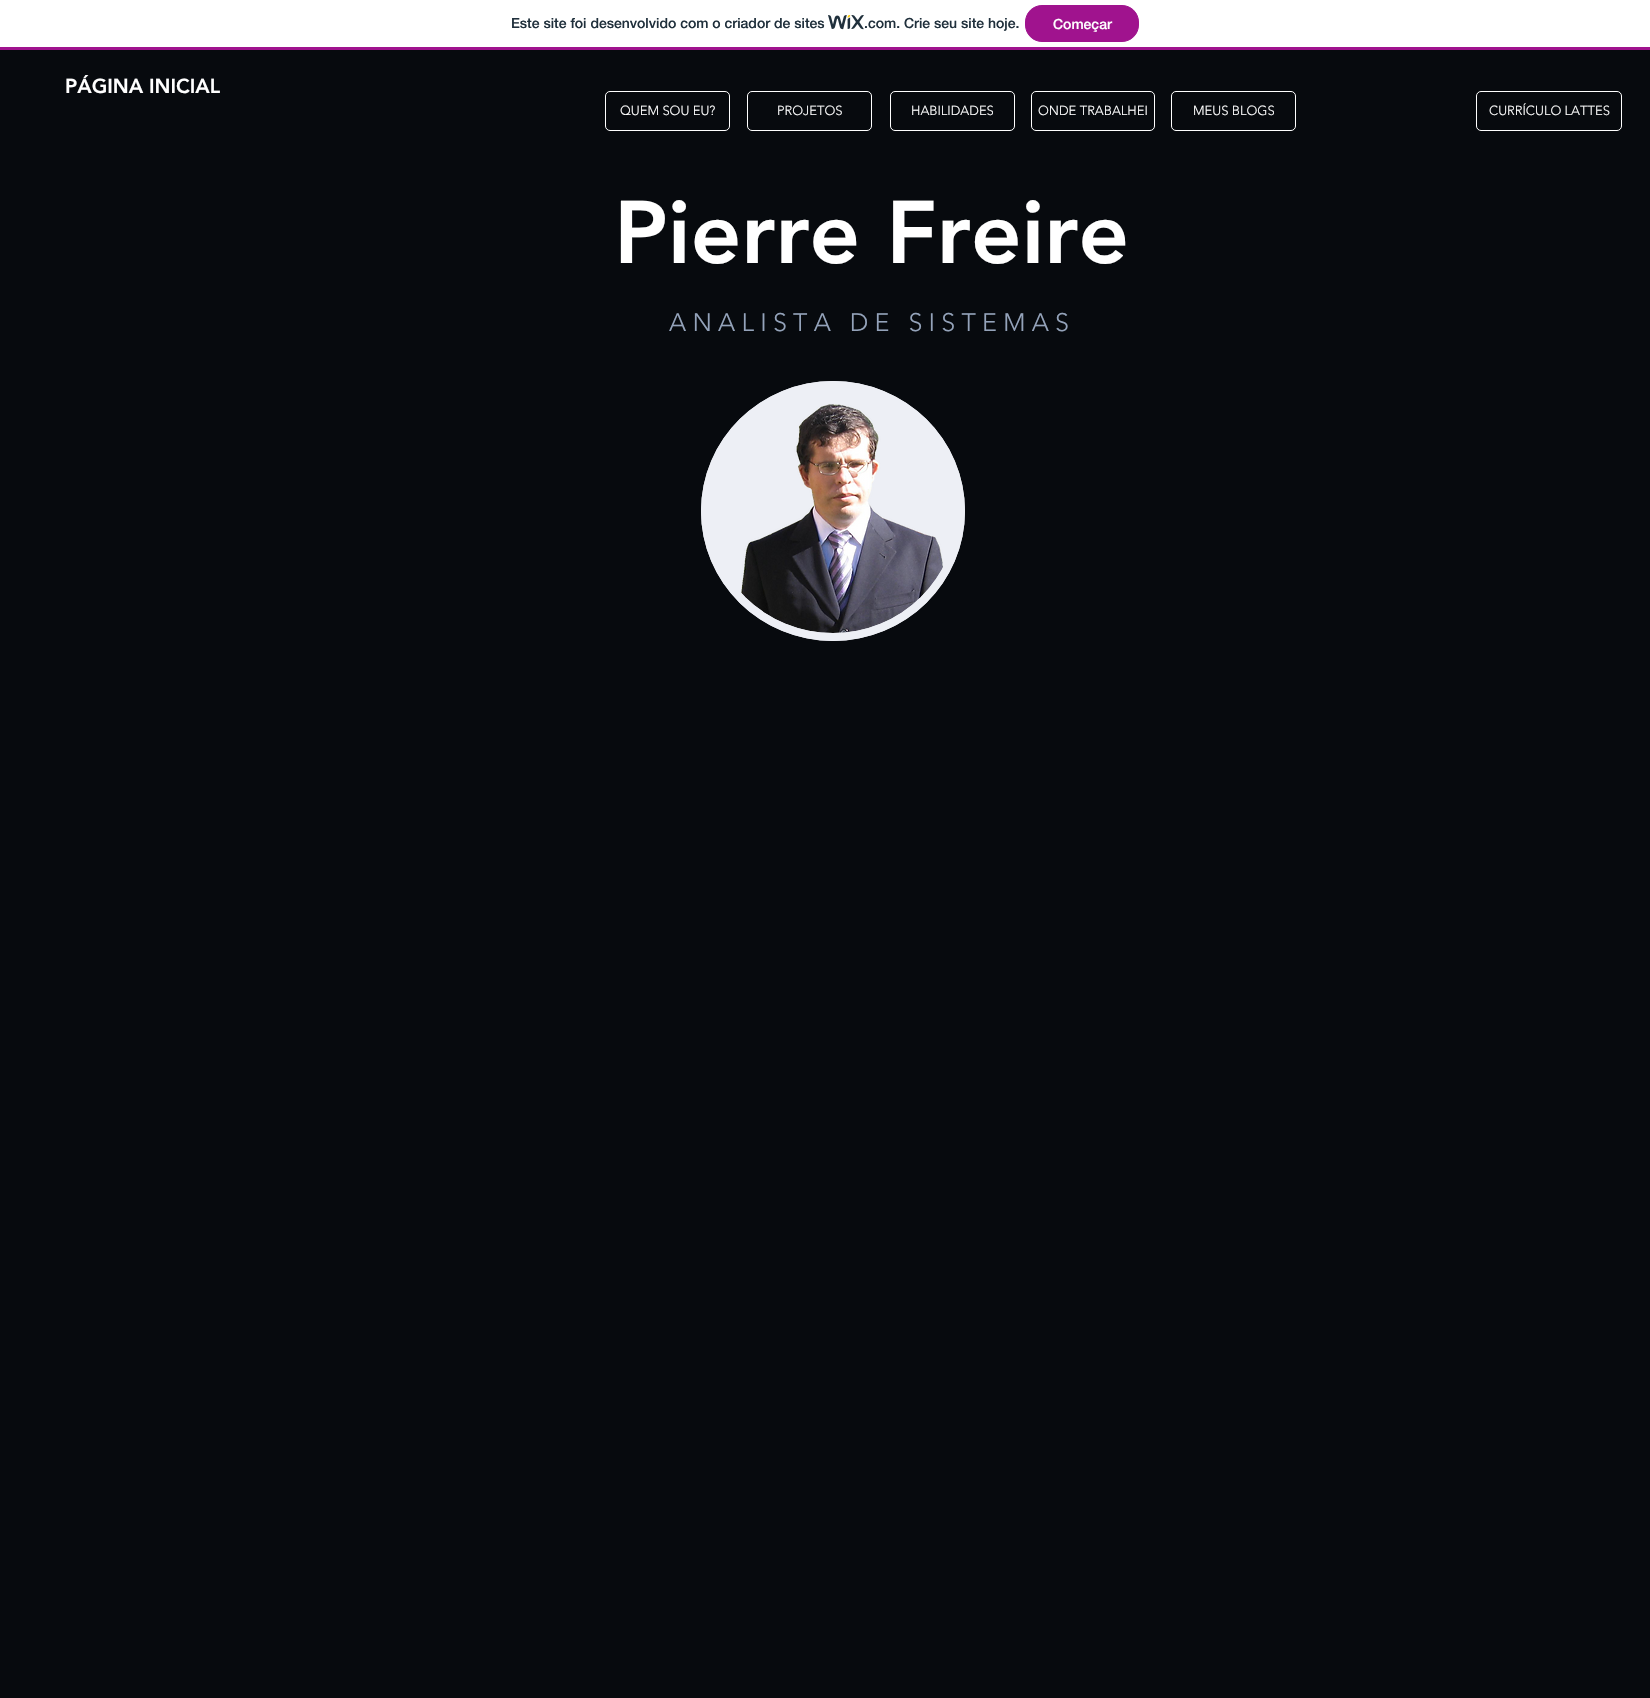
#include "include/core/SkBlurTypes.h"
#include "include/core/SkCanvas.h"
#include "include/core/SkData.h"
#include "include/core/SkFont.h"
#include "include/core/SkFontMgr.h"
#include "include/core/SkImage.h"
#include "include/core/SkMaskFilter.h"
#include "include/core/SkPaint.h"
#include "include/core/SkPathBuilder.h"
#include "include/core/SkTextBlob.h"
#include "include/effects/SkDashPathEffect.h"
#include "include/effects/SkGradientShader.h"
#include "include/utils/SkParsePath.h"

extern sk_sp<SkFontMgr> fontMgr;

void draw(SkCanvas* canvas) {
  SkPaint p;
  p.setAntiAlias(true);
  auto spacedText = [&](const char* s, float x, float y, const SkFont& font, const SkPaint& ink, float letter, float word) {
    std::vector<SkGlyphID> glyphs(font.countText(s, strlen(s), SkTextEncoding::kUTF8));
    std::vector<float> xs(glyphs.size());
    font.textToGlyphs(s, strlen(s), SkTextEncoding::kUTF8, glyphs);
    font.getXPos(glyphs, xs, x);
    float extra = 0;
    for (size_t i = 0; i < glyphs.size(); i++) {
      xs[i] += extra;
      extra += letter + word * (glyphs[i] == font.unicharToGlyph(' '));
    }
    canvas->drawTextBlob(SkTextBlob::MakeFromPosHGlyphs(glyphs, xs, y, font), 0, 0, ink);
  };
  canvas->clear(SK_ColorWHITE);
  p.setColor(SkColorSetRGB(160, 19, 142));
  canvas->drawRect(SkRect::MakeLTRB(0, 47, 1650, 50), p);
  canvas->drawImageRect(SkImages::DeferredFromEncodedData(SkData::MakeFromFileName("images/1.png")), SkRect::MakeLTRB(828, 15, 864, 30), SkSamplingOptions());
  canvas->drawRoundRect(SkRect::MakeLTRB(1025.5f, 5.5f, 1138.5f, 41.5f), 16.5f, 16.5f, p);
  p.setStyle(SkPaint::kStroke_Style);
  p.setStrokeWidth(1);
  canvas->drawRoundRect(SkRect::MakeLTRB(1025.5f, 5.5f, 1138.5f, 41.5f), 16.5f, 16.5f, p);
  p.setStyle(SkPaint::kFill_Style);
  p.setColor(SkColorSetRGB(7, 10, 14));
  canvas->drawRect(SkRect::MakeLTRB(0, 50, 1650, 1698), p);
  p.setStyle(SkPaint::kStroke_Style);
  p.setColor(SK_ColorWHITE);
  canvas->drawRoundRect(SkRect::MakeLTRB(605.5f, 91.5f, 729.5f, 130.5f), 4.5f, 4.5f, p);
  canvas->drawRoundRect(SkRect::MakeLTRB(747.5f, 91.5f, 871.5f, 130.5f), 4.5f, 4.5f, p);
  canvas->drawRoundRect(SkRect::MakeLTRB(890.5f, 91.5f, 1014.5f, 130.5f), 4.5f, 4.5f, p);
  canvas->drawRoundRect(SkRect::MakeLTRB(1031.5f, 91.5f, 1154.5f, 130.5f), 4.5f, 4.5f, p);
  canvas->drawRoundRect(SkRect::MakeLTRB(1171.5f, 91.5f, 1295.5f, 130.5f), 4.5f, 4.5f, p);
  canvas->drawRoundRect(SkRect::MakeLTRB(1476.5f, 91.5f, 1621.5f, 130.5f), 4.5f, 4.5f, p);
  p.setStyle(SkPaint::kFill_Style);
  p.setColor(SkColorSetRGB(237, 239, 245));
  canvas->drawOval(SkRect::MakeLTRB(701, 381, 965, 641), p);
  p.setStyle(SkPaint::kStroke_Style);
  p.setStrokeWidth(8);
  canvas->drawPath(SkPathBuilder().moveTo(833, 385).cubicTo(903.5f, 385, 961, 441.5f, 961, 511).cubicTo(961, 580.5f, 903.5f, 637, 833, 637).cubicTo(762.5f, 637, 705, 580.5f, 705, 511).cubicTo(705, 441.5f, 762.5f, 385, 833, 385).close().detach(), p);
  canvas->drawImageRect(SkImages::DeferredFromEncodedData(SkData::MakeFromFileName("images/2.png")), SkRect::MakeLTRB(741, 404, 943, 633), SkSamplingOptions());
  SkFont font1(fontMgr->matchFamilyStyle("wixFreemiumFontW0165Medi", SkFontStyle(500, SkFontStyle::kNormal_Width, SkFontStyle::kUpright_Slant)), 14);
  font1.setSubpixel(true);
  p.setStyle(SkPaint::kFill_Style);
  p.setColor(SkColorSetRGB(32, 48, 60));
  canvas->drawString("Este site foi desenvolvido com o criador de sites", 511, 28, font1, p);
  canvas->drawString(".com. Crie seu site hoje.", 864, 28, font1, p);
  p.setColor(SK_ColorWHITE);
  canvas->drawString("Começar", 1053, 29, font1, p);
  SkFont font2(fontMgr->matchFamilyStyle("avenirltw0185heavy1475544", SkFontStyle(900, SkFontStyle::kNormal_Width, SkFontStyle::kUpright_Slant)), 20);
  font2.setSubpixel(true);
  canvas->drawString("PÁGINA INICIAL", 65, 93, font2, p);
  SkFont font3(fontMgr->matchFamilyStyle("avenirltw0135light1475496", SkFontStyle(300, SkFontStyle::kNormal_Width, SkFontStyle::kUpright_Slant)), 13);
  font3.setSubpixel(true);
  canvas->drawString("QUEM SOU EU?", 620, 115, font3, p);
  canvas->drawString("PROJETOS", 777, 115, font3, p);
  canvas->drawString("HABILIDADES", 911, 115, font3, p);
  canvas->drawString("ONDE TRABALHEI", 1038, 115, font3, p);
  canvas->drawString("MEUS BLOGS", 1193, 115, font3, p);
  canvas->drawString("CURRÍCULO LATTES", 1489, 115, font3, p);
  SkFont font4(fontMgr->matchFamilyStyle("avenirltw0185heavy1475544", SkFontStyle(900, SkFontStyle::kNormal_Width, SkFontStyle::kUpright_Slant)), 88);
  font4.setSubpixel(true);
  canvas->drawString("Pierre Freire", 614, 263, font4, p);
  SkFont font5(fontMgr->matchFamilyStyle("avenirltw0135light1475496", SkFontStyle(300, SkFontStyle::kNormal_Width, SkFontStyle::kUpright_Slant)), 25);
  font5.setSubpixel(true);
  p.setColor(SkColorSetRGB(148, 163, 186));
  spacedText("ANALISTA DE SISTEMAS", 669, 331, font5, p, 6.25f, 0);
}
